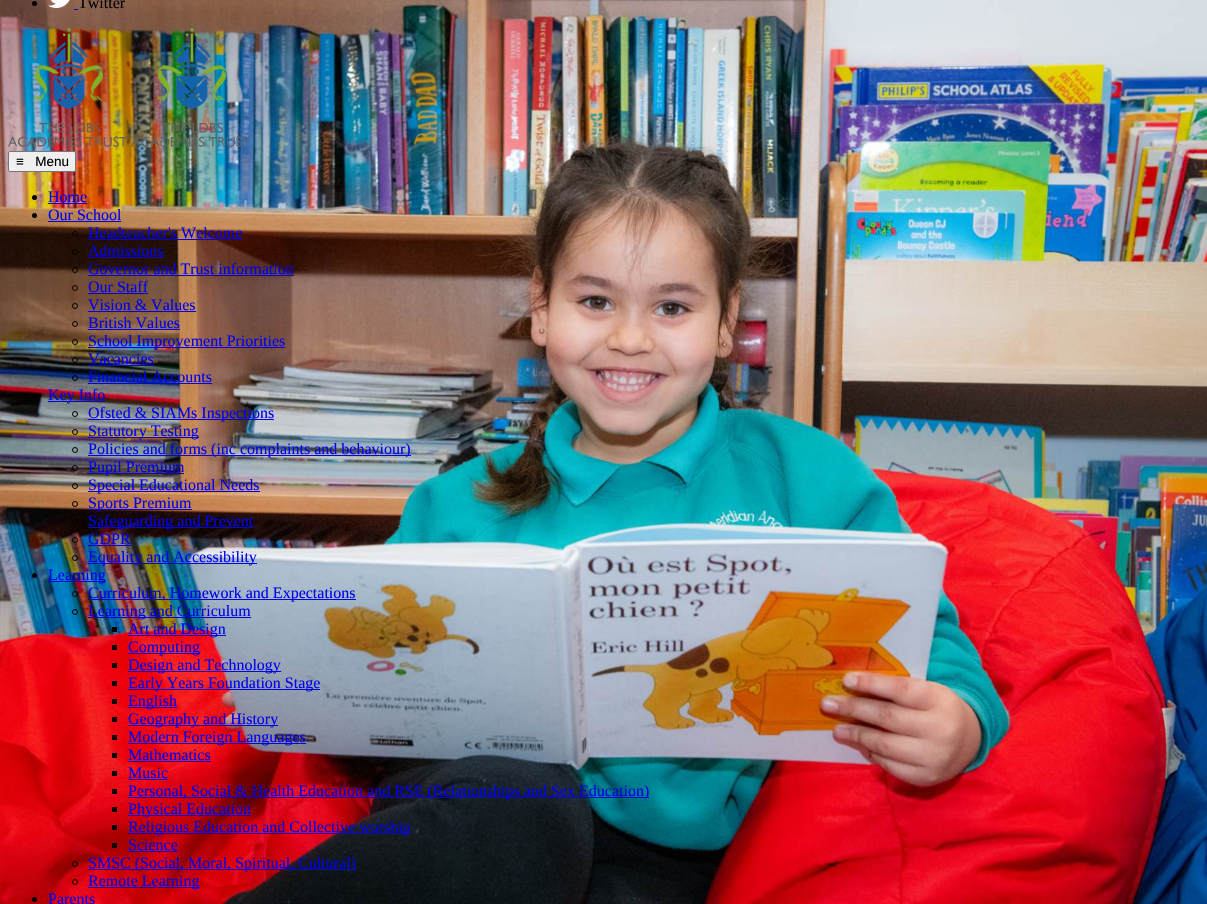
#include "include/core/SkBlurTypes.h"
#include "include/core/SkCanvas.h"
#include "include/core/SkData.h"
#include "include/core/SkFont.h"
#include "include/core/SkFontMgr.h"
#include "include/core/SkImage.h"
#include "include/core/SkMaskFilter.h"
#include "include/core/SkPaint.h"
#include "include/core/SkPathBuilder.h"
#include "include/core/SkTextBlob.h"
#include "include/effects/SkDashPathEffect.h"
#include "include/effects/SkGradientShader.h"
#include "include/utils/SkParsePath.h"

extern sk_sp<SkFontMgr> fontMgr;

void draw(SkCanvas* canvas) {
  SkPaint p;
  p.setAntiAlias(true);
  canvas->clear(SK_ColorWHITE);
  canvas->drawImageRect(SkImages::DeferredFromEncodedData(SkData::MakeFromFileName("images/1.png")), SkRect::MakeLTRB(0, 0, 1207, 904), SkSamplingOptions());
  p.setColor(SK_ColorBLACK);
  canvas->drawCircle(34.5f, 3.5f, 2.5f, p);
  canvas->drawImageRect(SkImages::DeferredFromEncodedData(SkData::MakeFromFileName("images/2.png")), SkRect::MakeLTRB(48, 0, 70, 8), SkSamplingOptions());
  p.setColor(SkColorSetRGB(0, 0, 238));
  canvas->drawRect(SkRect::MakeLTRB(74, 9, 78, 10), p);
  canvas->drawImageRect(SkImages::DeferredFromEncodedData(SkData::MakeFromFileName("images/3.png")), SkRect::MakeLTRB(8, 28, 127, 147), SkSamplingOptions());
  canvas->drawImageRect(SkImages::DeferredFromEncodedData(SkData::MakeFromFileName("images/4.png")), SkRect::MakeLTRB(131, 28, 250, 147), SkSamplingOptions());
  p.setColor(SkColorSetRGB(239, 239, 239));
  canvas->drawRoundRect(SkRect::MakeLTRB(8.5f, 151.5f, 75.5f, 171.5f), 1.5f, 1.5f, p);
  p.setStyle(SkPaint::kStroke_Style);
  p.setStrokeWidth(1);
  p.setColor(SkColorSetRGB(118, 118, 118));
  canvas->drawRoundRect(SkRect::MakeLTRB(8.5f, 151.5f, 75.5f, 171.5f), 1.5f, 1.5f, p);
  p.setStyle(SkPaint::kFill_Style);
  p.setColor(SK_ColorBLACK);
  canvas->drawCircle(34.5f, 197.5f, 2.5f, p);
  p.setColor(SkColorSetRGB(0, 0, 238));
  canvas->drawRect(SkRect::MakeLTRB(48, 203, 87, 204), p);
  p.setColor(SK_ColorBLACK);
  canvas->drawCircle(34.5f, 215.5f, 2.5f, p);
  p.setColor(SkColorSetRGB(0, 0, 238));
  canvas->drawRect(SkRect::MakeLTRB(48, 221, 121, 222), p);
  p.setStyle(SkPaint::kStroke_Style);
  p.setColor(SK_ColorBLACK);
  canvas->drawCircle(75, 234, 2.5f, p);
  p.setStyle(SkPaint::kFill_Style);
  p.setColor(SkColorSetRGB(0, 0, 238));
  canvas->drawRect(SkRect::MakeLTRB(88, 239, 242, 240), p);
  p.setStyle(SkPaint::kStroke_Style);
  p.setColor(SK_ColorBLACK);
  canvas->drawCircle(75, 252, 2.5f, p);
  p.setStyle(SkPaint::kFill_Style);
  p.setColor(SkColorSetRGB(0, 0, 238));
  canvas->drawRect(SkRect::MakeLTRB(88, 257, 164, 258), p);
  p.setStyle(SkPaint::kStroke_Style);
  p.setColor(SK_ColorBLACK);
  canvas->drawCircle(75, 270, 2.5f, p);
  p.setStyle(SkPaint::kFill_Style);
  p.setColor(SkColorSetRGB(0, 0, 238));
  canvas->drawRect(SkRect::MakeLTRB(88, 275, 294, 276), p);
  p.setStyle(SkPaint::kStroke_Style);
  p.setColor(SK_ColorBLACK);
  canvas->drawCircle(75, 288, 2.5f, p);
  p.setStyle(SkPaint::kFill_Style);
  p.setColor(SkColorSetRGB(0, 0, 238));
  canvas->drawRect(SkRect::MakeLTRB(88, 293, 148, 294), p);
  p.setStyle(SkPaint::kStroke_Style);
  p.setColor(SK_ColorBLACK);
  canvas->drawCircle(75, 306, 2.5f, p);
  p.setStyle(SkPaint::kFill_Style);
  p.setColor(SkColorSetRGB(0, 0, 238));
  canvas->drawRect(SkRect::MakeLTRB(88, 311, 196, 312), p);
  p.setStyle(SkPaint::kStroke_Style);
  p.setColor(SK_ColorBLACK);
  canvas->drawCircle(75, 324, 2.5f, p);
  p.setStyle(SkPaint::kFill_Style);
  p.setColor(SkColorSetRGB(0, 0, 238));
  canvas->drawRect(SkRect::MakeLTRB(88, 329, 180, 330), p);
  p.setStyle(SkPaint::kStroke_Style);
  p.setColor(SK_ColorBLACK);
  canvas->drawCircle(75, 342, 2.5f, p);
  p.setStyle(SkPaint::kFill_Style);
  p.setColor(SkColorSetRGB(0, 0, 238));
  canvas->drawRect(SkRect::MakeLTRB(88, 347, 285, 348), p);
  p.setStyle(SkPaint::kStroke_Style);
  p.setColor(SK_ColorBLACK);
  canvas->drawCircle(75, 360, 2.5f, p);
  p.setStyle(SkPaint::kFill_Style);
  p.setColor(SkColorSetRGB(0, 0, 238));
  canvas->drawRect(SkRect::MakeLTRB(88, 365, 154, 366), p);
  p.setStyle(SkPaint::kStroke_Style);
  p.setColor(SK_ColorBLACK);
  canvas->drawCircle(75, 378, 2.5f, p);
  p.setStyle(SkPaint::kFill_Style);
  p.setColor(SkColorSetRGB(0, 0, 238));
  canvas->drawRect(SkRect::MakeLTRB(88, 383, 212, 384), p);
  p.setColor(SK_ColorBLACK);
  canvas->drawCircle(34.5f, 395.5f, 2.5f, p);
  p.setColor(SkColorSetRGB(0, 0, 238));
  canvas->drawRect(SkRect::MakeLTRB(48, 401, 105, 402), p);
  p.setStyle(SkPaint::kStroke_Style);
  p.setColor(SK_ColorBLACK);
  canvas->drawCircle(75, 414, 2.5f, p);
  p.setStyle(SkPaint::kFill_Style);
  p.setColor(SkColorSetRGB(0, 0, 238));
  canvas->drawRect(SkRect::MakeLTRB(88, 419, 274, 420), p);
  p.setStyle(SkPaint::kStroke_Style);
  p.setColor(SK_ColorBLACK);
  canvas->drawCircle(75, 432, 2.5f, p);
  p.setStyle(SkPaint::kFill_Style);
  p.setColor(SkColorSetRGB(0, 0, 238));
  canvas->drawRect(SkRect::MakeLTRB(88, 437, 199, 438), p);
  p.setStyle(SkPaint::kStroke_Style);
  p.setColor(SK_ColorBLACK);
  canvas->drawCircle(75, 450, 2.5f, p);
  p.setStyle(SkPaint::kFill_Style);
  p.setColor(SkColorSetRGB(0, 0, 238));
  canvas->drawRect(SkRect::MakeLTRB(88, 455, 411, 456), p);
  p.setStyle(SkPaint::kStroke_Style);
  p.setColor(SK_ColorBLACK);
  canvas->drawCircle(75, 468, 2.5f, p);
  p.setStyle(SkPaint::kFill_Style);
  p.setColor(SkColorSetRGB(0, 0, 238));
  canvas->drawRect(SkRect::MakeLTRB(88, 473, 184, 474), p);
  p.setStyle(SkPaint::kStroke_Style);
  p.setColor(SK_ColorBLACK);
  canvas->drawCircle(75, 486, 2.5f, p);
  p.setStyle(SkPaint::kFill_Style);
  p.setColor(SkColorSetRGB(0, 0, 238));
  canvas->drawRect(SkRect::MakeLTRB(88, 491, 260, 492), p);
  p.setStyle(SkPaint::kStroke_Style);
  p.setColor(SK_ColorBLACK);
  canvas->drawCircle(75, 504, 2.5f, p);
  p.setStyle(SkPaint::kFill_Style);
  p.setColor(SkColorSetRGB(0, 0, 238));
  canvas->drawRect(SkRect::MakeLTRB(88, 509, 192, 510), p);
  p.setStyle(SkPaint::kStroke_Style);
  p.setColor(SK_ColorBLACK);
  canvas->drawCircle(75, 522, 2.5f, p);
  p.setStyle(SkPaint::kFill_Style);
  p.setColor(SkColorSetRGB(0, 0, 238));
  canvas->drawRect(SkRect::MakeLTRB(88, 527, 253, 528), p);
  p.setStyle(SkPaint::kStroke_Style);
  p.setColor(SK_ColorBLACK);
  canvas->drawCircle(75, 540, 2.5f, p);
  p.setStyle(SkPaint::kFill_Style);
  p.setColor(SkColorSetRGB(0, 0, 238));
  canvas->drawRect(SkRect::MakeLTRB(88, 545, 131, 546), p);
  p.setStyle(SkPaint::kStroke_Style);
  p.setColor(SK_ColorBLACK);
  canvas->drawCircle(75, 558, 2.5f, p);
  p.setStyle(SkPaint::kFill_Style);
  p.setColor(SkColorSetRGB(0, 0, 238));
  canvas->drawRect(SkRect::MakeLTRB(88, 563, 257, 564), p);
  p.setColor(SK_ColorBLACK);
  canvas->drawCircle(34.5f, 575.5f, 2.5f, p);
  p.setColor(SkColorSetRGB(0, 0, 238));
  canvas->drawRect(SkRect::MakeLTRB(48, 581, 106, 582), p);
  p.setStyle(SkPaint::kStroke_Style);
  p.setColor(SK_ColorBLACK);
  canvas->drawCircle(75, 594, 2.5f, p);
  p.setStyle(SkPaint::kFill_Style);
  p.setColor(SkColorSetRGB(0, 0, 238));
  canvas->drawRect(SkRect::MakeLTRB(88, 599, 356, 600), p);
  p.setStyle(SkPaint::kStroke_Style);
  p.setColor(SK_ColorBLACK);
  canvas->drawCircle(75, 612, 2.5f, p);
  p.setStyle(SkPaint::kFill_Style);
  p.setColor(SkColorSetRGB(0, 0, 238));
  canvas->drawRect(SkRect::MakeLTRB(88, 617, 251, 618), p);
  p.setColor(SK_ColorBLACK);
  canvas->drawRect(SkRect::MakeLTRB(112, 627, 117, 632), p);
  p.setColor(SkColorSetRGB(0, 0, 238));
  canvas->drawRect(SkRect::MakeLTRB(128, 635, 226, 636), p);
  p.setColor(SK_ColorBLACK);
  canvas->drawRect(SkRect::MakeLTRB(112, 645, 117, 650), p);
  p.setColor(SkColorSetRGB(0, 0, 238));
  canvas->drawRect(SkRect::MakeLTRB(128, 653, 200, 654), p);
  p.setColor(SK_ColorBLACK);
  canvas->drawRect(SkRect::MakeLTRB(112, 663, 117, 668), p);
  p.setColor(SkColorSetRGB(0, 0, 238));
  canvas->drawRect(SkRect::MakeLTRB(128, 671, 281, 672), p);
  p.setColor(SK_ColorBLACK);
  canvas->drawRect(SkRect::MakeLTRB(112, 681, 117, 686), p);
  p.setColor(SkColorSetRGB(0, 0, 238));
  canvas->drawRect(SkRect::MakeLTRB(128, 689, 320, 690), p);
  p.setColor(SK_ColorBLACK);
  canvas->drawRect(SkRect::MakeLTRB(112, 699, 117, 704), p);
  p.setColor(SkColorSetRGB(0, 0, 238));
  canvas->drawRect(SkRect::MakeLTRB(128, 707, 177, 708), p);
  p.setColor(SK_ColorBLACK);
  canvas->drawRect(SkRect::MakeLTRB(112, 717, 117, 722), p);
  p.setColor(SkColorSetRGB(0, 0, 238));
  canvas->drawRect(SkRect::MakeLTRB(128, 725, 278, 726), p);
  p.setColor(SK_ColorBLACK);
  canvas->drawRect(SkRect::MakeLTRB(112, 735, 117, 740), p);
  p.setColor(SkColorSetRGB(0, 0, 238));
  canvas->drawRect(SkRect::MakeLTRB(128, 743, 306, 744), p);
  p.setColor(SK_ColorBLACK);
  canvas->drawRect(SkRect::MakeLTRB(112, 753, 117, 758), p);
  p.setColor(SkColorSetRGB(0, 0, 238));
  canvas->drawRect(SkRect::MakeLTRB(128, 761, 211, 762), p);
  p.setColor(SK_ColorBLACK);
  canvas->drawRect(SkRect::MakeLTRB(112, 771, 117, 776), p);
  p.setColor(SkColorSetRGB(0, 0, 238));
  canvas->drawRect(SkRect::MakeLTRB(128, 779, 168, 780), p);
  p.setColor(SK_ColorBLACK);
  canvas->drawRect(SkRect::MakeLTRB(112, 789, 117, 794), p);
  p.setColor(SkColorSetRGB(0, 0, 238));
  canvas->drawRect(SkRect::MakeLTRB(128, 797, 649, 798), p);
  p.setColor(SK_ColorBLACK);
  canvas->drawRect(SkRect::MakeLTRB(112, 807, 117, 812), p);
  p.setColor(SkColorSetRGB(0, 0, 238));
  canvas->drawRect(SkRect::MakeLTRB(128, 815, 251, 816), p);
  p.setColor(SK_ColorBLACK);
  canvas->drawRect(SkRect::MakeLTRB(112, 825, 117, 830), p);
  p.setColor(SkColorSetRGB(0, 0, 238));
  canvas->drawRect(SkRect::MakeLTRB(128, 833, 411, 834), p);
  p.setColor(SK_ColorBLACK);
  canvas->drawRect(SkRect::MakeLTRB(112, 843, 117, 848), p);
  p.setColor(SkColorSetRGB(0, 0, 238));
  canvas->drawRect(SkRect::MakeLTRB(128, 851, 178, 852), p);
  p.setStyle(SkPaint::kStroke_Style);
  p.setColor(SK_ColorBLACK);
  canvas->drawCircle(75, 864, 2.5f, p);
  p.setStyle(SkPaint::kFill_Style);
  p.setColor(SkColorSetRGB(0, 0, 238));
  canvas->drawRect(SkRect::MakeLTRB(88, 869, 356, 870), p);
  p.setStyle(SkPaint::kStroke_Style);
  p.setColor(SK_ColorBLACK);
  canvas->drawCircle(75, 882, 2.5f, p);
  p.setStyle(SkPaint::kFill_Style);
  p.setColor(SkColorSetRGB(0, 0, 238));
  canvas->drawRect(SkRect::MakeLTRB(88, 887, 200, 888), p);
  p.setColor(SK_ColorBLACK);
  canvas->drawCircle(34.5f, 899.5f, 2.5f, p);
  SkFont font1(fontMgr->matchFamilyStyle("Liberation Serif", SkFontStyle::Normal()), 16);
  font1.setSubpixel(true);
  canvas->drawString("Twitter", 78, 8, font1, p);
  SkFont font2(fontMgr->matchFamilyStyle("Liberation Sans", SkFontStyle::Normal()), 13.5f);
  font2.setSubpixel(true);
  canvas->drawString("≡   Menu", 16, 166, font2, p);
  p.setColor(SkColorSetRGB(0, 0, 238));
  canvas->drawString("Home", 48, 202, font1, p);
  canvas->drawString("Our School", 48, 220, font1, p);
  canvas->drawString("Headteacher's Welcome", 88, 238, font1, p);
  canvas->drawString("Admissions", 88, 256, font1, p);
  canvas->drawString("Governor and Trust information", 88, 274, font1, p);
  canvas->drawString("Our Staff", 88, 292, font1, p);
  canvas->drawString("Vision & Values", 88, 310, font1, p);
  canvas->drawString("British Values", 88, 328, font1, p);
  canvas->drawString("School Improvement Priorities", 88, 346, font1, p);
  canvas->drawString("Vacancies", 88, 364, font1, p);
  canvas->drawString("Financial Accounts", 88, 382, font1, p);
  canvas->drawString("Key Info", 48, 400, font1, p);
  canvas->drawString("Ofsted & SIAMs Inspections", 88, 418, font1, p);
  canvas->drawString("Statutory Testing", 88, 436, font1, p);
  canvas->drawString("Policies and forms (inc complaints and behaviour)", 88, 454, font1, p);
  canvas->drawString("Pupil Premium", 88, 472, font1, p);
  canvas->drawString("Special Educational Needs", 88, 490, font1, p);
  canvas->drawString("Sports Premium", 88, 508, font1, p);
  canvas->drawString("Safeguarding and Prevent", 88, 526, font1, p);
  canvas->drawString("GDPR", 88, 544, font1, p);
  canvas->drawString("Equality and Accessibility", 88, 562, font1, p);
  canvas->drawString("Learning", 48, 580, font1, p);
  canvas->drawString("Curriculum, Homework and Expectations", 88, 598, font1, p);
  canvas->drawString("Learning and Curriculum", 88, 616, font1, p);
  canvas->drawString("Art and Design", 128, 634, font1, p);
  canvas->drawString("Computing", 128, 652, font1, p);
  canvas->drawString("Design and Technology", 128, 670, font1, p);
  canvas->drawString("Early Years Foundation Stage", 128, 688, font1, p);
  canvas->drawString("English", 128, 706, font1, p);
  canvas->drawString("Geography and History", 128, 724, font1, p);
  canvas->drawString("Modern Foreign Languages", 128, 742, font1, p);
  canvas->drawString("Mathematics", 128, 760, font1, p);
  canvas->drawString("Music", 128, 778, font1, p);
  canvas->drawString("Personal, Social & Health Education and RSE (Relationships and Sex Education)", 128, 796, font1, p);
  canvas->drawString("Physical Education", 128, 814, font1, p);
  canvas->drawString("Religious Education and Collective worship", 128, 832, font1, p);
  canvas->drawString("Science", 128, 850, font1, p);
  canvas->drawString("SMSC (Social, Moral, Spiritual, Cultural)", 88, 868, font1, p);
  canvas->drawString("Remote Learning", 88, 886, font1, p);
  canvas->drawString("Parents", 48, 904, font1, p);
}
